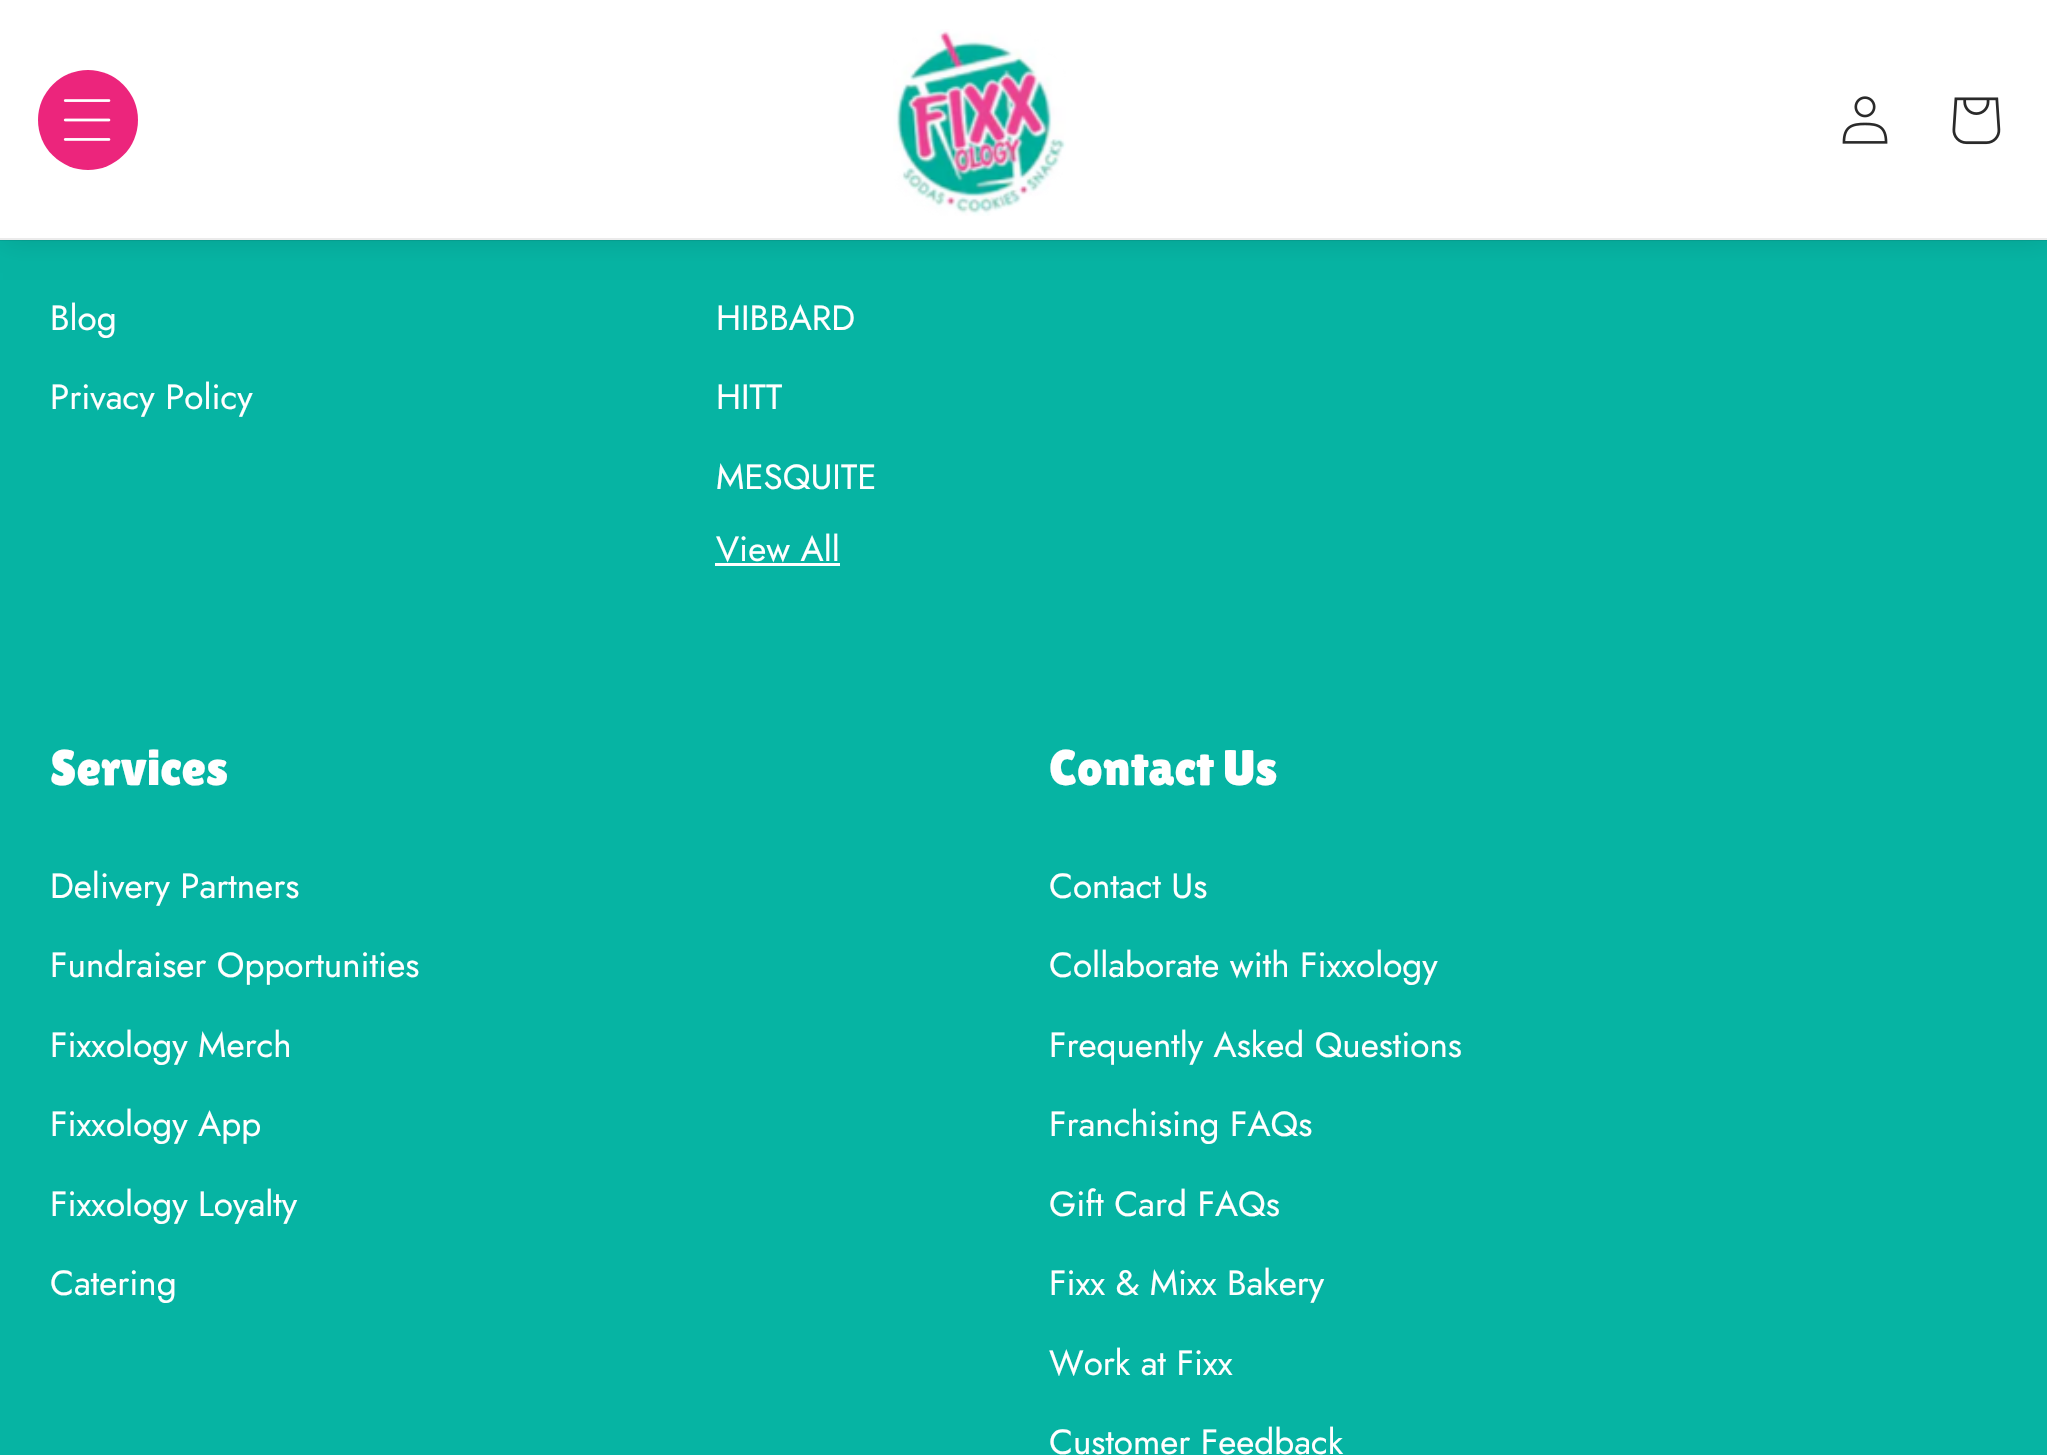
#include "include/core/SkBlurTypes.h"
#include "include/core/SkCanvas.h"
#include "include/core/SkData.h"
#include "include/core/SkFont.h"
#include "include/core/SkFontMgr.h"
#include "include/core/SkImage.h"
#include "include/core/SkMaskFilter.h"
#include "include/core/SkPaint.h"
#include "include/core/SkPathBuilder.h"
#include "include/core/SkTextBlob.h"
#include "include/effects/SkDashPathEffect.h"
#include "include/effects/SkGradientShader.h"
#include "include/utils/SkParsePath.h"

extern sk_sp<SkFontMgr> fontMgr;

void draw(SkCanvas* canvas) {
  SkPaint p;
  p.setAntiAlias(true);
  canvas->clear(SkColorSetRGB(6, 180, 163));
  p.setColor(SkColorSetARGB(26, 0, 0, 0));
  p.setMaskFilter(SkMaskFilter::MakeBlur(kNormal_SkBlurStyle, 12.5f));
  canvas->drawRect(SkRect::MakeLTRB(3, 3, 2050, 243), p);
  p.setMaskFilter(nullptr);
  p.setColor(SK_ColorWHITE);
  canvas->drawRect(SkRect::MakeLTRB(0, 0, 2047, 240), p);
  p.setColor(SkColorSetARGB(20, 0, 0, 0));
  canvas->drawRect(SkRect::MakeLTRB(0, 238, 2047, 241), p);
  p.setColor(SkColorSetRGB(236, 37, 124));
  canvas->drawCircle(88, 120, 50, p);
  canvas->drawImageRect(SkImages::DeferredFromEncodedData(SkData::MakeFromFileName("images/1.png")), SkRect::MakeLTRB(63, 99, 111, 141), SkSamplingOptions());
  canvas->drawImageRect(SkImages::DeferredFromEncodedData(SkData::MakeFromFileName("images/2.png")), SkRect::MakeLTRB(893, 29, 1066, 216), SkSamplingOptions());
  canvas->drawImageRect(SkImages::DeferredFromEncodedData(SkData::MakeFromFileName("images/3.png")), SkRect::MakeLTRB(1842, 96, 1888, 144), SkSamplingOptions());
  canvas->drawImageRect(SkImages::DeferredFromEncodedData(SkData::MakeFromFileName("images/4.png")), SkRect::MakeLTRB(1952, 97, 2001, 145), SkSamplingOptions());
  p.setColor(SK_ColorWHITE);
  canvas->drawRect(SkRect::MakeLTRB(715, 563, 840, 566), p);
  SkFont font1(fontMgr->matchFamilyStyle("Jost", SkFontStyle::Normal()), 35);
  font1.setSubpixel(true);
  canvas->drawString("Blog", 50, 330, font1, p);
  canvas->drawString("Privacy Policy", 50, 409, font1, p);
  canvas->drawString("HIBBARD", 716, 330, font1, p);
  canvas->drawString("HITT", 716, 409, font1, p);
  canvas->drawString("MESQUITE", 716, 489, font1, p);
  canvas->drawString("View All", 716, 561, font1, p);
  SkFont font2(fontMgr->matchFamilyStyle("Lilita One", SkFontStyle::Normal()), 50);
  font2.setSubpixel(true);
  canvas->drawString("Services", 50, 785, font2, p);
  canvas->drawString("Delivery Partners", 50, 898, font1, p);
  canvas->drawString("Fundraiser Opportunities", 50, 977, font1, p);
  canvas->drawString("Fixxology Merch", 50, 1057, font1, p);
  canvas->drawString("Fixxology App", 50, 1136, font1, p);
  canvas->drawString("Fixxology Loyalty", 50, 1216, font1, p);
  canvas->drawString("Catering", 50, 1295, font1, p);
  canvas->drawString("Contact Us", 1049, 785, font2, p);
  canvas->drawString("Contact Us", 1049, 898, font1, p);
  canvas->drawString("Collaborate with Fixxology", 1049, 977, font1, p);
  canvas->drawString("Frequently Asked Questions", 1049, 1057, font1, p);
  canvas->drawString("Franchising FAQs", 1049, 1136, font1, p);
  canvas->drawString("Gift Card FAQs", 1049, 1216, font1, p);
  canvas->drawString("Fixx & Mixx Bakery", 1049, 1295, font1, p);
  canvas->drawString("Work at Fixx", 1049, 1375, font1, p);
  canvas->drawString("Customer Feedback", 1049, 1454, font1, p);
}
